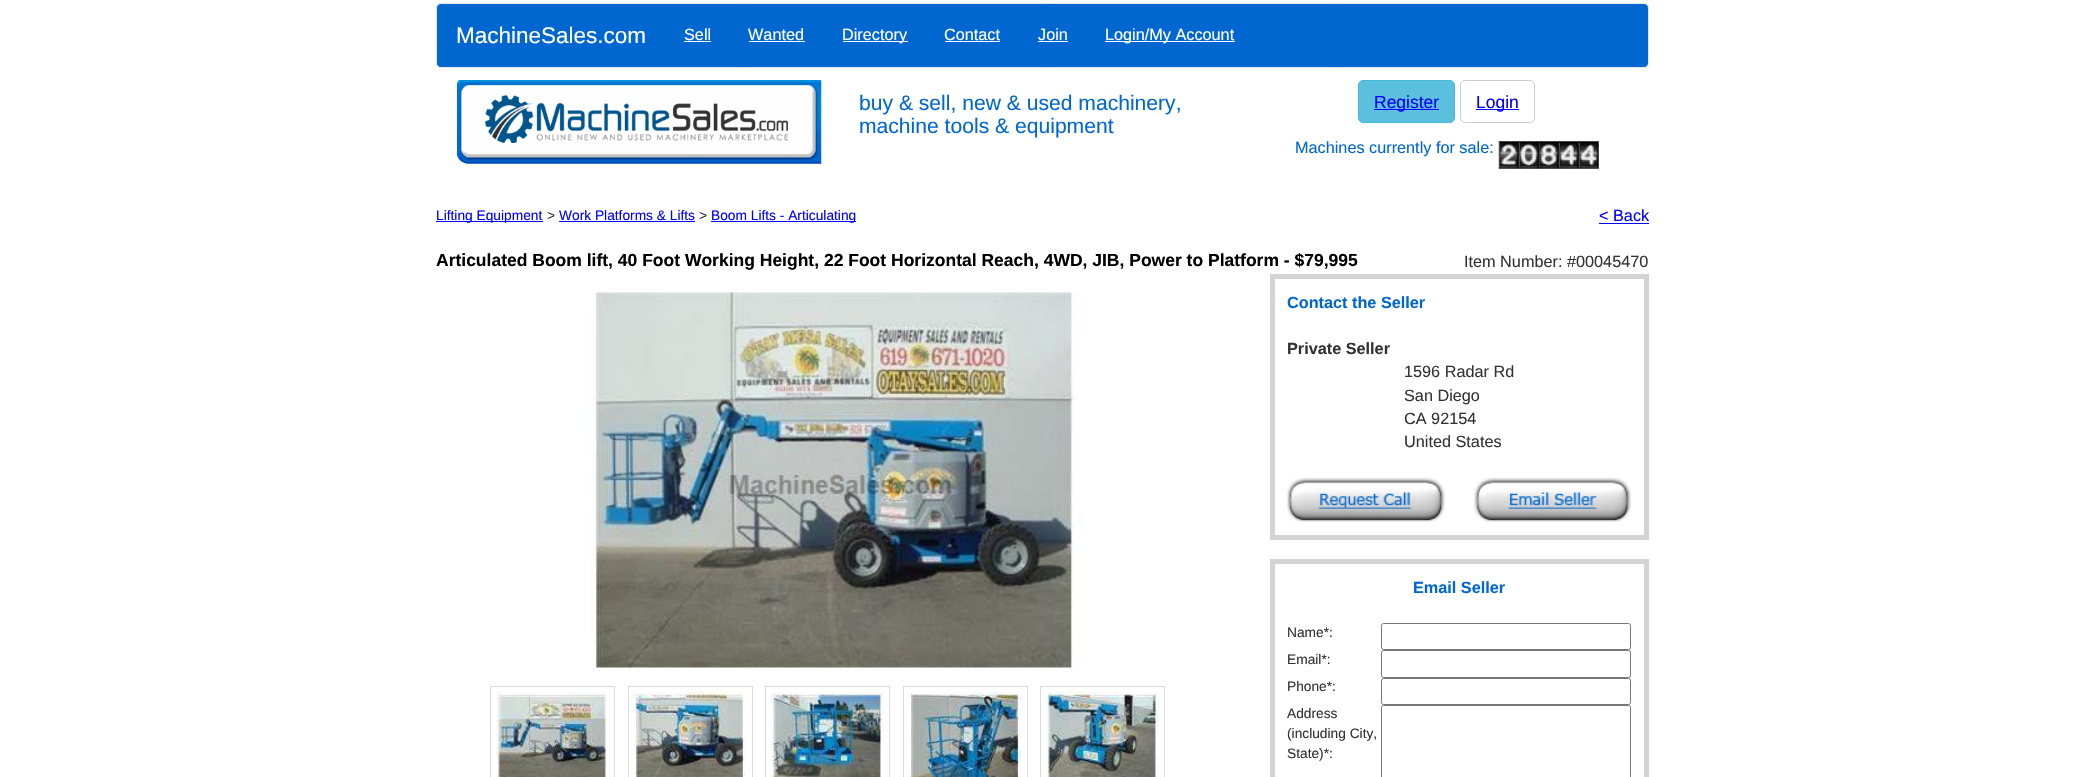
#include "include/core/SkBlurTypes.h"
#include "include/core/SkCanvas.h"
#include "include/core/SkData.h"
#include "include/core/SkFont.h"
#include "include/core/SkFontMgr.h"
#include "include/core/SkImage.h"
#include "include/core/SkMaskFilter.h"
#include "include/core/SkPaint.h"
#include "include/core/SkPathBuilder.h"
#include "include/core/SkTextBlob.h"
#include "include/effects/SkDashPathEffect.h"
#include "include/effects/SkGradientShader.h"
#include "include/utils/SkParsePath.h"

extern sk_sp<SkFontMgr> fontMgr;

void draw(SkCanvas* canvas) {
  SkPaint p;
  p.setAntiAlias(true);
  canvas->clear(SK_ColorWHITE);
  p.setColor(SkColorSetRGB(0, 103, 209));
  canvas->drawRoundRect(SkRect::MakeLTRB(436.5f, 3.5f, 1648.5f, 67.5f), 4.5f, 4.5f, p);
  p.setStyle(SkPaint::kStroke_Style);
  p.setStrokeWidth(1);
  p.setColor(SkColorSetRGB(231, 231, 231));
  canvas->drawRoundRect(SkRect::MakeLTRB(436.5f, 3.5f, 1648.5f, 67.5f), 4.5f, 4.5f, p);
  p.setStyle(SkPaint::kFill_Style);
  p.setColor(SK_ColorWHITE);
  canvas->drawRect(SkRect::MakeLTRB(684, 41, 711, 42), p);
  canvas->drawRect(SkRect::MakeLTRB(749, 41, 805, 42), p);
  canvas->drawRect(SkRect::MakeLTRB(843, 41, 908, 42), p);
  canvas->drawRect(SkRect::MakeLTRB(945, 41, 1000, 42), p);
  canvas->drawRect(SkRect::MakeLTRB(1038, 41, 1068, 42), p);
  canvas->drawRect(SkRect::MakeLTRB(1105, 41, 1235, 42), p);
  canvas->drawImageRect(SkImages::DeferredFromEncodedData(SkData::MakeFromFileName("images/1.png")), SkRect::MakeLTRB(457, 80, 822, 164), SkSamplingOptions());
  p.setColor(SkColorSetRGB(91, 192, 222));
  canvas->drawRoundRect(SkRect::MakeLTRB(1358.5f, 80.5f, 1454.5f, 122.5f), 4.5f, 4.5f, p);
  p.setStyle(SkPaint::kStroke_Style);
  p.setColor(SkColorSetRGB(70, 184, 218));
  canvas->drawRoundRect(SkRect::MakeLTRB(1358.5f, 80.5f, 1454.5f, 122.5f), 4.5f, 4.5f, p);
  p.setStyle(SkPaint::kFill_Style);
  p.setColor(SkColorSetRGB(0, 0, 255));
  canvas->drawRect(SkRect::MakeLTRB(1374, 109, 1439, 110), p);
  p.setStyle(SkPaint::kStroke_Style);
  p.setColor(SkColorSetRGB(204, 204, 204));
  canvas->drawRoundRect(SkRect::MakeLTRB(1460.5f, 80.5f, 1534.5f, 122.5f), 4.5f, 4.5f, p);
  p.setStyle(SkPaint::kFill_Style);
  p.setColor(SkColorSetRGB(0, 0, 255));
  canvas->drawRect(SkRect::MakeLTRB(1476, 109, 1519, 110), p);
  canvas->drawImageRect(SkImages::DeferredFromEncodedData(SkData::MakeFromFileName("images/2.png")), SkRect::MakeLTRB(1498, 141, 1599, 169), SkSamplingOptions());
  canvas->drawRect(SkRect::MakeLTRB(436, 221, 543, 222), p);
  canvas->drawRect(SkRect::MakeLTRB(559, 221, 695, 222), p);
  canvas->drawRect(SkRect::MakeLTRB(711, 221, 856, 222), p);
  canvas->drawRect(SkRect::MakeLTRB(1599, 223, 1649, 224), p);
  canvas->drawImageRect(SkImages::DeferredFromEncodedData(SkData::MakeFromFileName("images/3.png")), SkRect::MakeLTRB(584, 292, 1084, 668), SkSamplingOptions());
  p.setStyle(SkPaint::kStroke_Style);
  p.setColor(SkColorSetRGB(220, 217, 217));
  canvas->drawRect(SkRect::MakeLTRB(490.5f, 686.5f, 614.5f, 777.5f), p);
  canvas->drawImageRect(SkImages::DeferredFromEncodedData(SkData::MakeFromFileName("images/4.png")), SkRect::MakeLTRB(496, 692, 607, 777), SkSamplingOptions());
  canvas->drawRect(SkRect::MakeLTRB(628.5f, 686.5f, 752.5f, 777.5f), p);
  canvas->drawImageRect(SkImages::DeferredFromEncodedData(SkData::MakeFromFileName("images/5.png")), SkRect::MakeLTRB(633, 692, 746, 777), SkSamplingOptions());
  canvas->drawRect(SkRect::MakeLTRB(765.5f, 686.5f, 889.5f, 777.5f), p);
  canvas->drawImageRect(SkImages::DeferredFromEncodedData(SkData::MakeFromFileName("images/6.png")), SkRect::MakeLTRB(771, 692, 884, 777), SkSamplingOptions());
  canvas->drawRect(SkRect::MakeLTRB(903.5f, 686.5f, 1027.5f, 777.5f), p);
  canvas->drawImageRect(SkImages::DeferredFromEncodedData(SkData::MakeFromFileName("images/7.png")), SkRect::MakeLTRB(908, 692, 1022, 777), SkSamplingOptions());
  canvas->drawRect(SkRect::MakeLTRB(1040.5f, 686.5f, 1164.5f, 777.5f), p);
  canvas->drawImageRect(SkImages::DeferredFromEncodedData(SkData::MakeFromFileName("images/8.png")), SkRect::MakeLTRB(1046, 692, 1159, 777), SkSamplingOptions());
  p.setStrokeWidth(5);
  p.setColor(SkColorSetRGB(211, 211, 211));
  canvas->drawRect(SkRect::MakeLTRB(1272.5f, 276.5f, 1646.5f, 537.5f), p);
  canvas->drawImageRect(SkImages::DeferredFromEncodedData(SkData::MakeFromFileName("images/9.png")), SkRect::MakeLTRB(1287, 477, 1445, 522), SkSamplingOptions());
  canvas->drawImageRect(SkImages::DeferredFromEncodedData(SkData::MakeFromFileName("images/10.png")), SkRect::MakeLTRB(1473, 477, 1632, 522), SkSamplingOptions());
  canvas->drawRect(SkRect::MakeLTRB(1272.5f, 561.5f, 1646.5f, 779.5f), p);
  p.setStrokeWidth(1);
  p.setColor(SkColorSetRGB(118, 118, 118));
  canvas->drawRoundRect(SkRect::MakeLTRB(1381.5f, 623.5f, 1630.5f, 649.5f), 2, 2, p);
  canvas->drawRoundRect(SkRect::MakeLTRB(1381.5f, 650.5f, 1630.5f, 677.5f), 2, 2, p);
  canvas->drawRoundRect(SkRect::MakeLTRB(1381.5f, 678.5f, 1630.5f, 704.5f), 2, 2, p);
  canvas->drawRoundRect(SkRect::MakeLTRB(1381.5f, 705.5f, 1630.5f, 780.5f), 2, 2, p);
  SkFont font1(fontMgr->matchFamilyStyle("Liberation Sans", SkFontStyle::Normal()), 22.5f);
  font1.setSubpixel(true);
  p.setStyle(SkPaint::kFill_Style);
  p.setColor(SK_ColorWHITE);
  canvas->drawString("MachineSales.com", 456, 43, font1, p);
  SkFont font2(fontMgr->matchFamilyStyle("Liberation Sans", SkFontStyle::Normal()), 16.25f);
  font2.setSubpixel(true);
  canvas->drawString("Sell", 684, 40, font2, p);
  canvas->drawString("Wanted", 748, 40, font2, p);
  canvas->drawString("Directory", 842, 40, font2, p);
  canvas->drawString("Contact", 944, 40, font2, p);
  canvas->drawString("Join", 1038, 40, font2, p);
  canvas->drawString("Login/My Account", 1105, 40, font2, p);
  SkFont font3(fontMgr->matchFamilyStyle("Liberation Sans", SkFontStyle::Normal()), 21.1f);
  font3.setSubpixel(true);
  p.setColor(SkColorSetRGB(0, 103, 209));
  canvas->drawString("buy & sell, new & used machinery,", 859, 110, font3, p);
  canvas->drawString("machine tools & equipment", 859, 133, font3, p);
  SkFont font4(fontMgr->matchFamilyStyle("Liberation Sans", SkFontStyle::Normal()), 17.5f);
  font4.setSubpixel(true);
  p.setColor(SkColorSetRGB(0, 0, 255));
  canvas->drawString("Register", 1374, 108, font4, p);
  canvas->drawString("Login", 1476, 108, font4, p);
  p.setColor(SkColorSetRGB(0, 103, 209));
  canvas->drawString("Machines currently for sale:", 1295, 153, font2, p);
  SkFont font5(fontMgr->matchFamilyStyle("Liberation Sans", SkFontStyle::Normal()), 13.75f);
  font5.setSubpixel(true);
  p.setColor(SkColorSetRGB(0, 0, 255));
  canvas->drawString("Lifting Equipment", 436, 220, font5, p);
  p.setColor(SkColorSetRGB(51, 51, 51));
  canvas->drawString(">", 547, 220, font5, p);
  p.setColor(SkColorSetRGB(0, 0, 255));
  canvas->drawString("Work Platforms & Lifts", 559, 220, font5, p);
  p.setColor(SkColorSetRGB(51, 51, 51));
  canvas->drawString(">", 699, 220, font5, p);
  p.setColor(SkColorSetRGB(0, 0, 255));
  canvas->drawString("Boom Lifts - Articulating", 711, 220, font5, p);
  canvas->drawString("< Back", 1599, 221, font2, p);
  SkFont font6(fontMgr->matchFamilyStyle("Liberation Sans", SkFontStyle::Bold()), 17.5f);
  font6.setSubpixel(true);
  p.setColor(SK_ColorBLACK);
  canvas->drawString("Articulated Boom lift, 40 Foot Working Height, 22 Foot Horizontal Reach, 4WD, JIB, Power to Platform - $79,995", 436, 266, font6, p);
  p.setColor(SkColorSetRGB(51, 51, 51));
  canvas->drawString("Item Number: #00045470", 1464, 267, font2, p);
  SkFont font7(fontMgr->matchFamilyStyle("Liberation Sans", SkFontStyle::Bold()), 16.25f);
  font7.setSubpixel(true);
  p.setColor(SkColorSetRGB(0, 103, 209));
  canvas->drawString("Contact the Seller", 1287, 308, font7, p);
  p.setColor(SkColorSetRGB(51, 51, 51));
  canvas->drawString("Private Seller", 1287, 354, font7, p);
  canvas->drawString("1596 Radar Rd", 1404, 377, font2, p);
  canvas->drawString("San Diego", 1404, 401, font2, p);
  canvas->drawString("CA 92154", 1404, 424, font2, p);
  canvas->drawString("United States", 1404, 447, font2, p);
  p.setColor(SkColorSetRGB(0, 103, 209));
  canvas->drawString("Email Seller", 1413, 593, font7, p);
  p.setColor(SkColorSetRGB(51, 51, 51));
  canvas->drawString("Name*:", 1287, 637, font5, p);
  canvas->drawString("Email*:", 1287, 664, font5, p);
  canvas->drawString("Phone*:", 1287, 691, font5, p);
  canvas->drawString("Address", 1287, 718, font5, p);
  canvas->drawString("(including City,", 1287, 738, font5, p);
  canvas->drawString("State)*:", 1287, 758, font5, p);
}
